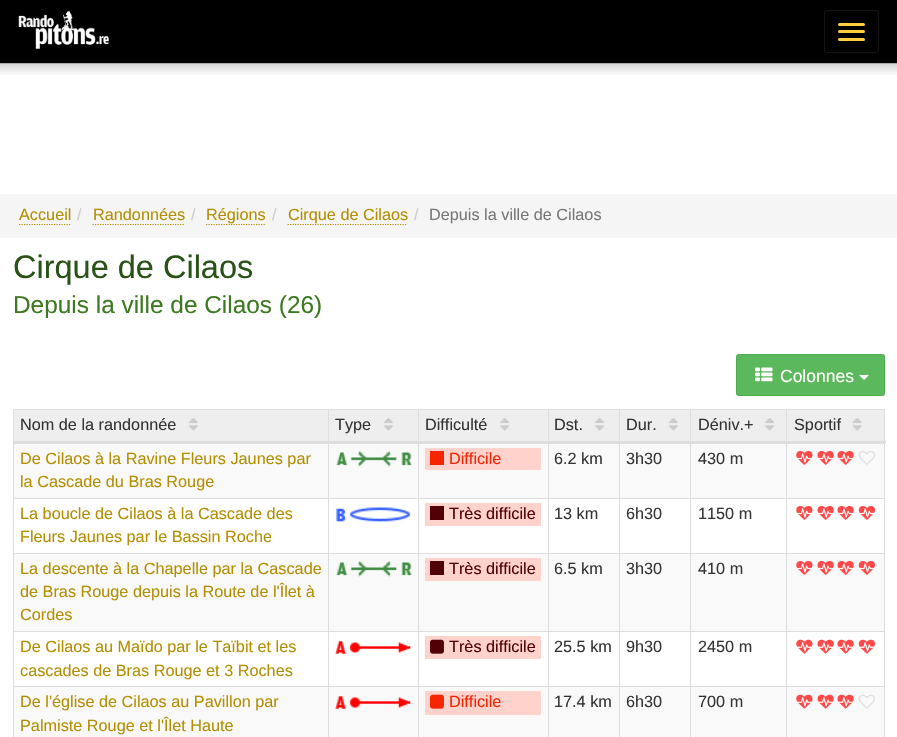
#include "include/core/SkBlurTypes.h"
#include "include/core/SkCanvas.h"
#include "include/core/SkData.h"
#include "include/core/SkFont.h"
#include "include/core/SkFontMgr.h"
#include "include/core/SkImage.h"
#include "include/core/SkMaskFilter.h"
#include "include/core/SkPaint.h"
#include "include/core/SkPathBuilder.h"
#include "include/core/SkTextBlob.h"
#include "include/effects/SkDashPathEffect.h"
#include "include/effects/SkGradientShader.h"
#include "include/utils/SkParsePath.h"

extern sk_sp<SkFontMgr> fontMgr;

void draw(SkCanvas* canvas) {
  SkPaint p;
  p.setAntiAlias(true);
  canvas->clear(SK_ColorWHITE);
  p.setColor(SK_ColorBLACK);
  canvas->drawRect(SkRect::MakeLTRB(0, 0, 897, 63), p);
  canvas->drawImageRect(SkImages::DeferredFromEncodedData(SkData::MakeFromFileName("images/1.png")), SkRect::MakeLTRB(18, 11, 109, 49), SkSamplingOptions());
  p.setStyle(SkPaint::kStroke_Style);
  p.setStrokeWidth(1);
  p.setColor(SkColorSetRGB(20, 20, 20));
  canvas->drawRoundRect(SkRect::MakeLTRB(824.5f, 10.5f, 878.5f, 52.5f), 2, 2, p);
  p.setStyle(SkPaint::kFill_Style);
  p.setColor(SkColorSetRGB(255, 206, 60));
  canvas->drawRoundRect(SkRect::MakeLTRB(838, 23, 865, 26), 1.5f, 1.5f, p);
  canvas->drawRoundRect(SkRect::MakeLTRB(838, 30, 865, 33), 1.5f, 1.5f, p);
  canvas->drawRoundRect(SkRect::MakeLTRB(838, 38, 865, 41), 1.5f, 1.5f, p);
  canvas->drawImageRect(SkImages::DeferredFromEncodedData(SkData::MakeFromFileName("images/2.png")), SkRect::MakeLTRB(0, 63, 897, 75), SkSamplingOptions());
  p.setColor(SkColorSetRGB(245, 245, 245));
  canvas->drawRect(SkRect::MakeLTRB(0, 194, 897, 238), p);
  p.setStyle(SkPaint::kStroke_Style);
  p.setStrokeWidth(1.2f);
  p.setColor(SkColorSetRGB(180, 142, 0));
  p.setPathEffect(SkDashPathEffect::Make({{1.25f, 1.25f}}, 0));
  canvas->drawPath(SkPathBuilder().moveTo(19, 224.5f).lineTo(71, 224.5f).detach(), p);
  p.setPathEffect(nullptr);
  p.setPathEffect(SkDashPathEffect::Make({{1.25f, 1.25f}}, 0));
  canvas->drawPath(SkPathBuilder().moveTo(92.5f, 224.5f).lineTo(185, 224.5f).detach(), p);
  p.setPathEffect(nullptr);
  p.setPathEffect(SkDashPathEffect::Make({{1.25f, 1.25f}}, 0));
  canvas->drawPath(SkPathBuilder().moveTo(206, 224.5f).lineTo(266, 224.5f).detach(), p);
  p.setPathEffect(nullptr);
  p.setPathEffect(SkDashPathEffect::Make({{1.25f, 1.25f}}, 0));
  canvas->drawPath(SkPathBuilder().moveTo(287.5f, 224.5f).lineTo(407.5f, 224.5f).detach(), p);
  p.setPathEffect(nullptr);
  p.setStyle(SkPaint::kFill_Style);
  p.setColor(SkColorSetRGB(92, 184, 92));
  canvas->drawRoundRect(SkRect::MakeLTRB(736.5f, 354.5f, 884.5f, 395.5f), 2, 2, p);
  p.setStyle(SkPaint::kStroke_Style);
  p.setStrokeWidth(1);
  p.setColor(SkColorSetRGB(76, 174, 76));
  canvas->drawRoundRect(SkRect::MakeLTRB(736.5f, 354.5f, 884.5f, 395.5f), 2, 2, p);
  canvas->drawImageRect(SkImages::DeferredFromEncodedData(SkData::MakeFromFileName("images/3.png")), SkRect::MakeLTRB(755, 367, 773, 382), SkSamplingOptions());
  p.setStyle(SkPaint::kFill_Style);
  p.setColor(SK_ColorWHITE);
  canvas->drawPath(SkPathBuilder().moveTo(859, 375).lineTo(869, 375).lineTo(864, 380).close().detach(), p);
  p.setColor(SkColorSetRGB(221, 221, 221));
  canvas->drawRect(SkRect::MakeLTRB(13, 409, 885, 410), p);
  canvas->drawRect(SkRect::MakeLTRB(884, 409, 885, 737), p);
  canvas->drawRect(SkRect::MakeLTRB(13, 409, 14, 737), p);
  p.setColor(SkColorSetRGB(238, 238, 238));
  canvas->drawRect(SkRect::MakeLTRB(14, 410, 328, 441), p);
  canvas->drawImageRect(SkImages::DeferredFromEncodedData(SkData::MakeFromFileName("images/4.png")), SkRect::MakeLTRB(188, 418, 198, 431), SkSamplingOptions());
  canvas->drawRect(SkRect::MakeLTRB(329, 410, 418, 441), p);
  canvas->drawImageRect(SkImages::DeferredFromEncodedData(SkData::MakeFromFileName("images/4.png")), SkRect::MakeLTRB(383, 418, 393, 431), SkSamplingOptions());
  canvas->drawRect(SkRect::MakeLTRB(419, 410, 548, 441), p);
  canvas->drawImageRect(SkImages::DeferredFromEncodedData(SkData::MakeFromFileName("images/5.png")), SkRect::MakeLTRB(500, 418, 510, 431), SkSamplingOptions());
  canvas->drawRect(SkRect::MakeLTRB(549, 410, 619, 441), p);
  canvas->drawImageRect(SkImages::DeferredFromEncodedData(SkData::MakeFromFileName("images/5.png")), SkRect::MakeLTRB(595, 418, 605, 431), SkSamplingOptions());
  canvas->drawRect(SkRect::MakeLTRB(620, 410, 690, 441), p);
  canvas->drawImageRect(SkImages::DeferredFromEncodedData(SkData::MakeFromFileName("images/4.png")), SkRect::MakeLTRB(668, 418, 678, 431), SkSamplingOptions());
  canvas->drawRect(SkRect::MakeLTRB(691, 410, 884, 441), p);
  canvas->drawImageRect(SkImages::DeferredFromEncodedData(SkData::MakeFromFileName("images/5.png")), SkRect::MakeLTRB(765, 418, 775, 431), SkSamplingOptions());
  p.setColor(SkColorSetRGB(249, 249, 249));
  canvas->drawRect(SkRect::MakeLTRB(14, 444, 884, 498), p);
  p.setColor(SkColorSetRGB(221, 221, 221));
  canvas->drawRect(SkRect::MakeLTRB(786, 498, 885, 499), p);
  canvas->drawRect(SkRect::MakeLTRB(786, 553, 885, 554), p);
  p.setColor(SkColorSetRGB(249, 249, 249));
  canvas->drawRect(SkRect::MakeLTRB(14, 554, 884, 631), p);
  p.setColor(SkColorSetRGB(221, 221, 221));
  canvas->drawRect(SkRect::MakeLTRB(786, 631, 885, 632), p);
  p.setColor(SkColorSetRGB(249, 249, 249));
  canvas->drawRect(SkRect::MakeLTRB(14, 687, 884, 737), p);
  p.setColor(SkColorSetRGB(221, 221, 221));
  canvas->drawRect(SkRect::MakeLTRB(786, 686, 885, 687), p);
  canvas->drawRect(SkRect::MakeLTRB(786, 686, 787, 737), p);
  canvas->drawRect(SkRect::MakeLTRB(690, 686, 788, 687), p);
  canvas->drawRect(SkRect::MakeLTRB(786, 631, 787, 688), p);
  canvas->drawRect(SkRect::MakeLTRB(690, 631, 788, 632), p);
  canvas->drawRect(SkRect::MakeLTRB(786, 553, 787, 633), p);
  canvas->drawRect(SkRect::MakeLTRB(690, 553, 788, 554), p);
  canvas->drawRect(SkRect::MakeLTRB(786, 498, 787, 554), p);
  canvas->drawRect(SkRect::MakeLTRB(690, 498, 788, 499), p);
  canvas->drawRect(SkRect::MakeLTRB(690, 686, 691, 737), p);
  canvas->drawRect(SkRect::MakeLTRB(619, 686, 691, 687), p);
  canvas->drawRect(SkRect::MakeLTRB(690, 631, 691, 688), p);
  canvas->drawRect(SkRect::MakeLTRB(619, 631, 691, 632), p);
  canvas->drawRect(SkRect::MakeLTRB(690, 553, 691, 633), p);
  canvas->drawRect(SkRect::MakeLTRB(619, 553, 691, 554), p);
  canvas->drawRect(SkRect::MakeLTRB(690, 498, 691, 554), p);
  canvas->drawRect(SkRect::MakeLTRB(619, 498, 691, 499), p);
  canvas->drawRect(SkRect::MakeLTRB(619, 686, 620, 737), p);
  canvas->drawRect(SkRect::MakeLTRB(548, 686, 620, 687), p);
  canvas->drawRect(SkRect::MakeLTRB(619, 631, 620, 688), p);
  canvas->drawRect(SkRect::MakeLTRB(548, 631, 620, 632), p);
  canvas->drawRect(SkRect::MakeLTRB(619, 553, 620, 633), p);
  canvas->drawRect(SkRect::MakeLTRB(548, 553, 620, 554), p);
  canvas->drawRect(SkRect::MakeLTRB(619, 498, 620, 554), p);
  canvas->drawRect(SkRect::MakeLTRB(548, 498, 620, 499), p);
  canvas->drawRect(SkRect::MakeLTRB(548, 686, 549, 737), p);
  canvas->drawRect(SkRect::MakeLTRB(418, 686, 549, 687), p);
  canvas->drawRect(SkRect::MakeLTRB(548, 631, 549, 688), p);
  canvas->drawRect(SkRect::MakeLTRB(418, 631, 549, 632), p);
  canvas->drawRect(SkRect::MakeLTRB(548, 553, 549, 633), p);
  canvas->drawRect(SkRect::MakeLTRB(418, 553, 549, 554), p);
  canvas->drawRect(SkRect::MakeLTRB(548, 498, 549, 554), p);
  canvas->drawRect(SkRect::MakeLTRB(418, 498, 549, 499), p);
  canvas->drawRect(SkRect::MakeLTRB(418, 686, 419, 737), p);
  canvas->drawRect(SkRect::MakeLTRB(328, 686, 419, 687), p);
  canvas->drawRect(SkRect::MakeLTRB(418, 631, 419, 688), p);
  canvas->drawRect(SkRect::MakeLTRB(328, 631, 419, 632), p);
  canvas->drawRect(SkRect::MakeLTRB(418, 553, 419, 633), p);
  canvas->drawRect(SkRect::MakeLTRB(328, 553, 419, 554), p);
  canvas->drawRect(SkRect::MakeLTRB(418, 498, 419, 554), p);
  canvas->drawRect(SkRect::MakeLTRB(328, 498, 419, 499), p);
  canvas->drawRect(SkRect::MakeLTRB(328, 686, 329, 737), p);
  canvas->drawRect(SkRect::MakeLTRB(13, 686, 329, 687), p);
  canvas->drawRect(SkRect::MakeLTRB(328, 631, 329, 688), p);
  canvas->drawRect(SkRect::MakeLTRB(13, 631, 329, 632), p);
  canvas->drawRect(SkRect::MakeLTRB(328, 553, 329, 633), p);
  canvas->drawRect(SkRect::MakeLTRB(13, 553, 329, 554), p);
  canvas->drawRect(SkRect::MakeLTRB(328, 498, 329, 554), p);
  canvas->drawRect(SkRect::MakeLTRB(13, 498, 329, 499), p);
  canvas->drawRect(SkRect::MakeLTRB(328, 409, 329, 499), p);
  canvas->drawRect(SkRect::MakeLTRB(418, 409, 419, 499), p);
  canvas->drawRect(SkRect::MakeLTRB(548, 409, 549, 499), p);
  canvas->drawRect(SkRect::MakeLTRB(619, 409, 620, 499), p);
  canvas->drawRect(SkRect::MakeLTRB(690, 409, 691, 499), p);
  canvas->drawRect(SkRect::MakeLTRB(786, 409, 787, 499), p);
  canvas->drawRect(SkRect::MakeLTRB(13, 441, 886, 444), p);
  canvas->drawImageRect(SkImages::DeferredFromEncodedData(SkData::MakeFromFileName("images/6.png")), SkRect::MakeLTRB(852, 418, 862, 431), SkSamplingOptions());
  canvas->drawImageRect(SkImages::DeferredFromEncodedData(SkData::MakeFromFileName("images/7.png")), SkRect::MakeLTRB(336, 451, 412, 467), SkSamplingOptions());
  p.setColor(SkColorSetRGB(255, 210, 204));
  canvas->drawRect(SkRect::MakeLTRB(425, 448, 541, 470), p);
  p.setColor(SkColorSetRGB(244, 37, 0));
  canvas->drawRect(SkRect::MakeLTRB(430, 451, 444, 465), p);
  canvas->drawImageRect(SkImages::DeferredFromEncodedData(SkData::MakeFromFileName("images/8.png")), SkRect::MakeLTRB(796, 451, 813, 465), SkSamplingOptions());
  canvas->drawImageRect(SkImages::DeferredFromEncodedData(SkData::MakeFromFileName("images/9.png")), SkRect::MakeLTRB(817, 451, 834, 465), SkSamplingOptions());
  canvas->drawImageRect(SkImages::DeferredFromEncodedData(SkData::MakeFromFileName("images/9.png")), SkRect::MakeLTRB(837, 451, 854, 465), SkSamplingOptions());
  canvas->drawImageRect(SkImages::DeferredFromEncodedData(SkData::MakeFromFileName("images/10.png")), SkRect::MakeLTRB(858, 451, 875, 465), SkSamplingOptions());
  canvas->drawImageRect(SkImages::DeferredFromEncodedData(SkData::MakeFromFileName("images/11.png")), SkRect::MakeLTRB(336, 507, 411, 522), SkSamplingOptions());
  p.setColor(SkColorSetRGB(255, 210, 204));
  canvas->drawRect(SkRect::MakeLTRB(425, 503, 541, 526), p);
  p.setColor(SkColorSetRGB(81, 0, 6));
  canvas->drawRect(SkRect::MakeLTRB(430, 506, 444, 520), p);
  canvas->drawImageRect(SkImages::DeferredFromEncodedData(SkData::MakeFromFileName("images/12.png")), SkRect::MakeLTRB(796, 506, 813, 520), SkSamplingOptions());
  canvas->drawImageRect(SkImages::DeferredFromEncodedData(SkData::MakeFromFileName("images/13.png")), SkRect::MakeLTRB(817, 506, 834, 520), SkSamplingOptions());
  canvas->drawImageRect(SkImages::DeferredFromEncodedData(SkData::MakeFromFileName("images/13.png")), SkRect::MakeLTRB(837, 506, 854, 520), SkSamplingOptions());
  canvas->drawImageRect(SkImages::DeferredFromEncodedData(SkData::MakeFromFileName("images/14.png")), SkRect::MakeLTRB(858, 506, 875, 520), SkSamplingOptions());
  canvas->drawImageRect(SkImages::DeferredFromEncodedData(SkData::MakeFromFileName("images/7.png")), SkRect::MakeLTRB(336, 561, 412, 577), SkSamplingOptions());
  p.setColor(SkColorSetRGB(255, 210, 204));
  canvas->drawRect(SkRect::MakeLTRB(425, 558, 541, 581), p);
  p.setColor(SkColorSetRGB(81, 0, 6));
  canvas->drawRect(SkRect::MakeLTRB(430, 561, 444, 575), p);
  canvas->drawImageRect(SkImages::DeferredFromEncodedData(SkData::MakeFromFileName("images/8.png")), SkRect::MakeLTRB(796, 561, 813, 575), SkSamplingOptions());
  canvas->drawImageRect(SkImages::DeferredFromEncodedData(SkData::MakeFromFileName("images/9.png")), SkRect::MakeLTRB(817, 561, 834, 575), SkSamplingOptions());
  canvas->drawImageRect(SkImages::DeferredFromEncodedData(SkData::MakeFromFileName("images/9.png")), SkRect::MakeLTRB(837, 561, 854, 575), SkSamplingOptions());
  canvas->drawImageRect(SkImages::DeferredFromEncodedData(SkData::MakeFromFileName("images/15.png")), SkRect::MakeLTRB(858, 561, 875, 575), SkSamplingOptions());
  canvas->drawImageRect(SkImages::DeferredFromEncodedData(SkData::MakeFromFileName("images/16.png")), SkRect::MakeLTRB(335, 641, 412, 654), SkSamplingOptions());
  p.setColor(SkColorSetRGB(255, 210, 204));
  canvas->drawRect(SkRect::MakeLTRB(425, 636, 541, 659), p);
  canvas->drawImageRect(SkImages::DeferredFromEncodedData(SkData::MakeFromFileName("images/17.png")), SkRect::MakeLTRB(430, 639, 444, 654), SkSamplingOptions());
  canvas->drawImageRect(SkImages::DeferredFromEncodedData(SkData::MakeFromFileName("images/18.png")), SkRect::MakeLTRB(796, 639, 813, 654), SkSamplingOptions());
  canvas->drawImageRect(SkImages::DeferredFromEncodedData(SkData::MakeFromFileName("images/19.png")), SkRect::MakeLTRB(817, 639, 834, 654), SkSamplingOptions());
  canvas->drawImageRect(SkImages::DeferredFromEncodedData(SkData::MakeFromFileName("images/19.png")), SkRect::MakeLTRB(837, 639, 854, 654), SkSamplingOptions());
  canvas->drawImageRect(SkImages::DeferredFromEncodedData(SkData::MakeFromFileName("images/20.png")), SkRect::MakeLTRB(858, 639, 875, 654), SkSamplingOptions());
  canvas->drawImageRect(SkImages::DeferredFromEncodedData(SkData::MakeFromFileName("images/21.png")), SkRect::MakeLTRB(335, 696, 412, 709), SkSamplingOptions());
  canvas->drawRect(SkRect::MakeLTRB(425, 691, 541, 715), p);
  canvas->drawImageRect(SkImages::DeferredFromEncodedData(SkData::MakeFromFileName("images/22.png")), SkRect::MakeLTRB(430, 694, 444, 709), SkSamplingOptions());
  canvas->drawImageRect(SkImages::DeferredFromEncodedData(SkData::MakeFromFileName("images/23.png")), SkRect::MakeLTRB(796, 694, 813, 709), SkSamplingOptions());
  canvas->drawImageRect(SkImages::DeferredFromEncodedData(SkData::MakeFromFileName("images/24.png")), SkRect::MakeLTRB(817, 694, 834, 709), SkSamplingOptions());
  canvas->drawImageRect(SkImages::DeferredFromEncodedData(SkData::MakeFromFileName("images/24.png")), SkRect::MakeLTRB(837, 694, 854, 709), SkSamplingOptions());
  canvas->drawImageRect(SkImages::DeferredFromEncodedData(SkData::MakeFromFileName("images/25.png")), SkRect::MakeLTRB(858, 694, 875, 709), SkSamplingOptions());
  SkFont font1(fontMgr->matchFamilyStyle("Liberation Sans", SkFontStyle::Normal()), 16.25f);
  font1.setSubpixel(true);
  p.setColor(SkColorSetRGB(180, 142, 0));
  canvas->drawString("Accueil", 19, 220, font1, p);
  p.setColor(SkColorSetRGB(204, 204, 204));
  canvas->drawString("/", 77, 220, font1, p);
  p.setColor(SkColorSetRGB(180, 142, 0));
  canvas->drawString("Randonnées", 93, 220, font1, p);
  p.setColor(SkColorSetRGB(204, 204, 204));
  canvas->drawString("/", 191, 220, font1, p);
  p.setColor(SkColorSetRGB(180, 142, 0));
  canvas->drawString("Régions", 206, 220, font1, p);
  p.setColor(SkColorSetRGB(204, 204, 204));
  canvas->drawString("/", 272, 220, font1, p);
  p.setColor(SkColorSetRGB(180, 142, 0));
  canvas->drawString("Cirque de Cilaos", 288, 220, font1, p);
  p.setColor(SkColorSetRGB(204, 204, 204));
  canvas->drawString("/", 414, 220, font1, p);
  p.setColor(SkColorSetRGB(119, 119, 119));
  canvas->drawString("Depuis la ville de Cilaos", 429, 220, font1, p);
  SkFont font2(fontMgr->matchFamilyStyle("Liberation Sans", SkFontStyle::Normal()), 32.5f);
  font2.setSubpixel(true);
  p.setColor(SkColorSetRGB(41, 82, 22));
  canvas->drawString("Cirque de Cilaos", 13, 278, font2, p);
  SkFont font3(fontMgr->matchFamilyStyle("Liberation Sans", SkFontStyle::Normal()), 24.4f);
  font3.setSubpixel(true);
  p.setColor(SkColorSetRGB(61, 122, 33));
  canvas->drawString("Depuis la ville de Cilaos (26)", 13, 313, font3, p);
  SkFont font4(fontMgr->matchFamilyStyle("Liberation Sans", SkFontStyle::Normal()), 17.5f);
  font4.setSubpixel(true);
  p.setColor(SK_ColorWHITE);
  canvas->drawString("Colonnes", 780, 382, font4, p);
  p.setColor(SkColorSetRGB(51, 51, 51));
  canvas->drawString("Nom de la randonnée", 20, 430, font1, p);
  canvas->drawString("Type", 335, 430, font1, p);
  canvas->drawString("Difficulté", 425, 430, font1, p);
  canvas->drawString("Dst.", 554, 430, font1, p);
  canvas->drawString("Dur.", 626, 430, font1, p);
  canvas->drawString("Déniv.+", 698, 430, font1, p);
  canvas->drawString("Sportif", 794, 430, font1, p);
  p.setColor(SkColorSetRGB(180, 142, 0));
  canvas->drawString("De Cilaos à la Ravine Fleurs Jaunes par", 20, 464, font1, p);
  canvas->drawString("la Cascade du Bras Rouge", 20, 487, font1, p);
  p.setColor(SkColorSetRGB(244, 37, 0));
  canvas->drawString("Difficile", 449, 464, font1, p);
  p.setColor(SkColorSetRGB(51, 51, 51));
  canvas->drawString("6.2 km", 554, 464, font1, p);
  canvas->drawString("3h30", 626, 464, font1, p);
  canvas->drawString("430 m", 698, 464, font1, p);
  p.setColor(SkColorSetRGB(180, 142, 0));
  canvas->drawString("La boucle de Cilaos à la Cascade des", 20, 519, font1, p);
  canvas->drawString("Fleurs Jaunes par le Bassin Roche", 20, 542, font1, p);
  p.setColor(SkColorSetRGB(81, 0, 6));
  canvas->drawString("Très difficile", 449, 519, font1, p);
  p.setColor(SkColorSetRGB(51, 51, 51));
  canvas->drawString("13 km", 554, 519, font1, p);
  canvas->drawString("6h30", 626, 519, font1, p);
  canvas->drawString("1150 m", 698, 519, font1, p);
  p.setColor(SkColorSetRGB(180, 142, 0));
  canvas->drawString("La descente à la Chapelle par la Cascade", 20, 574, font1, p);
  canvas->drawString("de Bras Rouge depuis la Route de l'Îlet à", 20, 597, font1, p);
  canvas->drawString("Cordes", 20, 620, font1, p);
  p.setColor(SkColorSetRGB(81, 0, 6));
  canvas->drawString("Très difficile", 449, 574, font1, p);
  p.setColor(SkColorSetRGB(51, 51, 51));
  canvas->drawString("6.5 km", 554, 574, font1, p);
  canvas->drawString("3h30", 626, 574, font1, p);
  canvas->drawString("410 m", 698, 574, font1, p);
  p.setColor(SkColorSetRGB(180, 142, 0));
  canvas->drawString("De Cilaos au Maïdo par le Taïbit et les", 20, 652, font1, p);
  canvas->drawString("cascades de Bras Rouge et 3 Roches", 20, 676, font1, p);
  p.setColor(SkColorSetRGB(81, 0, 6));
  canvas->drawString("Très difficile", 449, 652, font1, p);
  p.setColor(SkColorSetRGB(51, 51, 51));
  canvas->drawString("25.5 km", 554, 652, font1, p);
  canvas->drawString("9h30", 626, 652, font1, p);
  canvas->drawString("2450 m", 698, 652, font1, p);
  p.setColor(SkColorSetRGB(180, 142, 0));
  canvas->drawString("De l'église de Cilaos au Pavillon par", 20, 707, font1, p);
  canvas->drawString("Palmiste Rouge et l'Îlet Haute", 20, 731, font1, p);
  p.setColor(SkColorSetRGB(244, 37, 0));
  canvas->drawString("Difficile", 449, 707, font1, p);
  p.setColor(SkColorSetRGB(51, 51, 51));
  canvas->drawString("17.4 km", 554, 707, font1, p);
  canvas->drawString("6h30", 626, 707, font1, p);
  canvas->drawString("700 m", 698, 707, font1, p);
}
